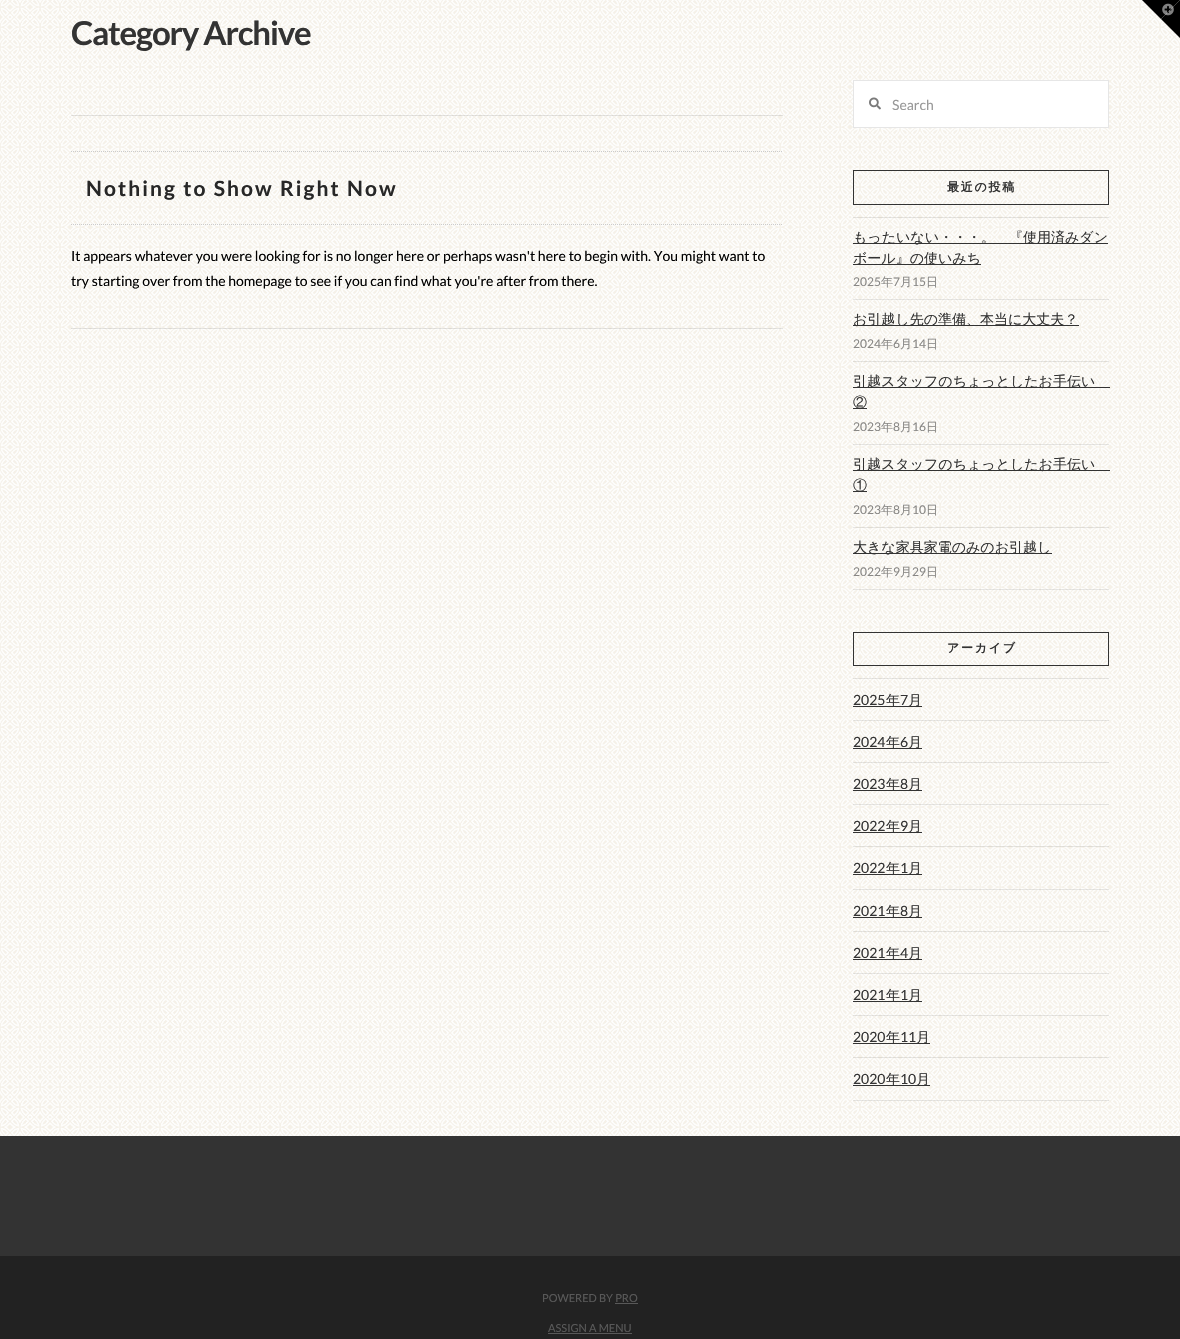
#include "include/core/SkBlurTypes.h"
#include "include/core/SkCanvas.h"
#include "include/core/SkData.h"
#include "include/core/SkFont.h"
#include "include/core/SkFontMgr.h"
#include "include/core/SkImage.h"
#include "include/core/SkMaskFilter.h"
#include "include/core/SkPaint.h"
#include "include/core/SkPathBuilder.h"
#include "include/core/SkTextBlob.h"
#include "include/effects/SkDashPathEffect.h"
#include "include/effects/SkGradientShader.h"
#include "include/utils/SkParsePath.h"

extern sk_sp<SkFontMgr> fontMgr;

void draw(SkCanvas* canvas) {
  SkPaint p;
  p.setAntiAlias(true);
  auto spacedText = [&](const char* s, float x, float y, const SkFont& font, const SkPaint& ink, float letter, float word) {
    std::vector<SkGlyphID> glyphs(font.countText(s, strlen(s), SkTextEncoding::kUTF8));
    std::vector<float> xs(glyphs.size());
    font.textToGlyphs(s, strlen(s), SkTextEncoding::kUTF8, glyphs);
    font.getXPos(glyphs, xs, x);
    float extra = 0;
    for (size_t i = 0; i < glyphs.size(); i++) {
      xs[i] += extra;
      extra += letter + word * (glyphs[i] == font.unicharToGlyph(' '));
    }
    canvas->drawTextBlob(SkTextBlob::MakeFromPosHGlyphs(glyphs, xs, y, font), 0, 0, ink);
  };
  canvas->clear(SK_ColorWHITE);
  canvas->drawImageRect(SkImages::DeferredFromEncodedData(SkData::MakeFromFileName("images/1.png")), SkRect::MakeLTRB(0, 0, 1180, 1136), SkSamplingOptions());
  p.setColor(SkColorSetARGB(26, 0, 0, 0));
  canvas->drawRect(SkRect::MakeLTRB(71, 115, 783, 116), p);
  canvas->drawRect(SkRect::MakeLTRB(71, 328, 783, 329), p);
  p.setStyle(SkPaint::kStroke_Style);
  p.setStrokeWidth(1);
  p.setColor(SkColorSetRGB(204, 204, 204));
  p.setPathEffect(SkDashPathEffect::Make({{1, 1}}, 0));
  canvas->drawPath(SkPathBuilder().moveTo(71, 151.5f).lineTo(783, 151.5f).detach(), p);
  p.setPathEffect(nullptr);
  p.setPathEffect(SkDashPathEffect::Make({{1, 1}}, 0));
  canvas->drawPath(SkPathBuilder().moveTo(71, 224.5f).lineTo(783, 224.5f).detach(), p);
  p.setPathEffect(nullptr);
  p.setStyle(SkPaint::kFill_Style);
  p.setColor(SK_ColorWHITE);
  canvas->drawRect(SkRect::MakeLTRB(853.5f, 80.5f, 1108.5f, 127.5f), p);
  p.setStyle(SkPaint::kStroke_Style);
  p.setColor(SkColorSetRGB(230, 230, 230));
  canvas->drawRect(SkRect::MakeLTRB(853.5f, 80.5f, 1108.5f, 127.5f), p);
  canvas->drawImageRect(SkImages::DeferredFromEncodedData(SkData::MakeFromFileName("images/2.png")), SkRect::MakeLTRB(869, 97, 881, 110), SkSamplingOptions());
  p.setColor(SkColorSetRGB(51, 51, 51));
  canvas->drawRect(SkRect::MakeLTRB(853.5f, 170.5f, 1108.5f, 204.5f), p);
  p.setStyle(SkPaint::kFill_Style);
  p.setColor(SkColorSetARGB(23, 0, 0, 0));
  canvas->drawRect(SkRect::MakeLTRB(853, 217, 1109, 218), p);
  p.setColor(SkColorSetRGB(51, 51, 51));
  canvas->drawRect(SkRect::MakeLTRB(853, 243, 1108, 244), p);
  canvas->drawRect(SkRect::MakeLTRB(853, 264, 981, 265), p);
  p.setColor(SkColorSetARGB(23, 0, 0, 0));
  canvas->drawRect(SkRect::MakeLTRB(853, 299, 1109, 300), p);
  p.setColor(SkColorSetRGB(51, 51, 51));
  canvas->drawRect(SkRect::MakeLTRB(853, 325, 1079, 326), p);
  p.setColor(SkColorSetARGB(23, 0, 0, 0));
  canvas->drawRect(SkRect::MakeLTRB(853, 361, 1109, 362), p);
  p.setColor(SkColorSetRGB(51, 51, 51));
  canvas->drawRect(SkRect::MakeLTRB(853, 387, 1110, 388), p);
  canvas->drawRect(SkRect::MakeLTRB(853, 408, 867, 409), p);
  p.setColor(SkColorSetARGB(23, 0, 0, 0));
  canvas->drawRect(SkRect::MakeLTRB(853, 444, 1109, 445), p);
  p.setColor(SkColorSetRGB(51, 51, 51));
  canvas->drawRect(SkRect::MakeLTRB(853, 470, 1110, 471), p);
  canvas->drawRect(SkRect::MakeLTRB(853, 491, 867, 492), p);
  p.setColor(SkColorSetARGB(23, 0, 0, 0));
  canvas->drawRect(SkRect::MakeLTRB(853, 527, 1109, 528), p);
  canvas->drawRect(SkRect::MakeLTRB(853, 589, 1109, 590), p);
  p.setColor(SkColorSetRGB(51, 51, 51));
  canvas->drawRect(SkRect::MakeLTRB(853, 553, 1052, 554), p);
  p.setStyle(SkPaint::kStroke_Style);
  canvas->drawRect(SkRect::MakeLTRB(853.5f, 632.5f, 1108.5f, 665.5f), p);
  p.setStyle(SkPaint::kFill_Style);
  p.setColor(SkColorSetARGB(23, 0, 0, 0));
  canvas->drawRect(SkRect::MakeLTRB(853, 678, 1109, 679), p);
  p.setColor(SkColorSetRGB(51, 51, 51));
  canvas->drawRect(SkRect::MakeLTRB(853, 706, 922, 707), p);
  p.setColor(SkColorSetARGB(23, 0, 0, 0));
  canvas->drawRect(SkRect::MakeLTRB(853, 720, 1109, 721), p);
  p.setColor(SkColorSetRGB(51, 51, 51));
  canvas->drawRect(SkRect::MakeLTRB(853, 748, 922, 749), p);
  p.setColor(SkColorSetARGB(23, 0, 0, 0));
  canvas->drawRect(SkRect::MakeLTRB(853, 762, 1109, 763), p);
  p.setColor(SkColorSetRGB(51, 51, 51));
  canvas->drawRect(SkRect::MakeLTRB(853, 790, 922, 791), p);
  p.setColor(SkColorSetARGB(23, 0, 0, 0));
  canvas->drawRect(SkRect::MakeLTRB(853, 804, 1109, 805), p);
  p.setColor(SkColorSetRGB(51, 51, 51));
  canvas->drawRect(SkRect::MakeLTRB(853, 832, 922, 833), p);
  p.setColor(SkColorSetARGB(23, 0, 0, 0));
  canvas->drawRect(SkRect::MakeLTRB(853, 846, 1109, 847), p);
  p.setColor(SkColorSetRGB(51, 51, 51));
  canvas->drawRect(SkRect::MakeLTRB(853, 874, 922, 875), p);
  p.setColor(SkColorSetARGB(23, 0, 0, 0));
  canvas->drawRect(SkRect::MakeLTRB(853, 889, 1109, 890), p);
  p.setColor(SkColorSetRGB(51, 51, 51));
  canvas->drawRect(SkRect::MakeLTRB(853, 917, 922, 918), p);
  p.setColor(SkColorSetARGB(23, 0, 0, 0));
  canvas->drawRect(SkRect::MakeLTRB(853, 931, 1109, 932), p);
  p.setColor(SkColorSetRGB(51, 51, 51));
  canvas->drawRect(SkRect::MakeLTRB(853, 959, 922, 960), p);
  p.setColor(SkColorSetARGB(23, 0, 0, 0));
  canvas->drawRect(SkRect::MakeLTRB(853, 973, 1109, 974), p);
  p.setColor(SkColorSetRGB(51, 51, 51));
  canvas->drawRect(SkRect::MakeLTRB(853, 1001, 922, 1002), p);
  p.setColor(SkColorSetARGB(23, 0, 0, 0));
  canvas->drawRect(SkRect::MakeLTRB(853, 1015, 1109, 1016), p);
  p.setColor(SkColorSetRGB(51, 51, 51));
  canvas->drawRect(SkRect::MakeLTRB(853, 1043, 930, 1044), p);
  p.setColor(SkColorSetARGB(23, 0, 0, 0));
  canvas->drawRect(SkRect::MakeLTRB(853, 1057, 1109, 1058), p);
  canvas->drawRect(SkRect::MakeLTRB(853, 1100, 1109, 1101), p);
  p.setColor(SkColorSetRGB(51, 51, 51));
  canvas->drawRect(SkRect::MakeLTRB(853, 1085, 930, 1086), p);
  canvas->drawRect(SkRect::MakeLTRB(0, 1136, 1180, 1256), p);
  p.setColor(SkColorSetRGB(34, 34, 34));
  canvas->drawRect(SkRect::MakeLTRB(0, 1256, 1180, 1339), p);
  p.setColor(SkColorSetRGB(89, 89, 89));
  canvas->drawRect(SkRect::MakeLTRB(615, 1303, 638, 1304), p);
  canvas->drawRect(SkRect::MakeLTRB(548, 1333, 632, 1334), p);
  p.setColor(SK_ColorBLACK);
  canvas->drawPath(SkPathBuilder().moveTo(1142, 0).lineTo(1180, 0).lineTo(1161, 19).close().detach(), p);
  canvas->drawPath(SkPathBuilder().moveTo(1180, 0).lineTo(1180, 38).lineTo(1161, 19).close().detach(), p);
  canvas->drawImageRect(SkImages::DeferredFromEncodedData(SkData::MakeFromFileName("images/3.png")), SkRect::MakeLTRB(1162, 3, 1174, 16), SkSamplingOptions());
  SkFont font1(fontMgr->matchFamilyStyle("Lato", SkFontStyle::Bold()), 33);
  font1.setSubpixel(true);
  p.setColor(SkColorSetRGB(51, 51, 51));
  spacedText("Category Archive", 71, 45, font1, p, -1.2f, 0);
  SkFont font2(fontMgr->matchFamilyStyle("Lato", SkFontStyle::Bold()), 21);
  font2.setSubpixel(true);
  p.setColor(SkColorSetRGB(39, 39, 39));
  spacedText("Nothing to Show Right Now", 86, 196, font2, p, 2.1f, 0);
  SkFont font3(fontMgr->matchFamilyStyle("Lato", SkFontStyle::Normal()), 14);
  font3.setSubpixel(true);
  p.setColor(SK_ColorBLACK);
  canvas->drawString("It appears whatever you were looking for is no longer here or perhaps wasn't here to begin with. You might want to", 71, 261, font3, p);
  canvas->drawString("try starting over from the homepage to see if you can find what you're after from there.", 71, 286, font3, p);
  p.setColor(SkColorSetRGB(153, 153, 153));
  canvas->drawString("Search", 892, 110, font3, p);
  SkFont font4(fontMgr->matchFamilyStyle("WenQuanYi Zen Hei", SkFontStyle::Bold()), 12);
  font4.setSubpixel(true);
  p.setColor(SkColorSetRGB(51, 51, 51));
  spacedText("最近の投稿", 947, 191, font4, p, 1.75f, 0);
  SkFont font5(fontMgr->matchFamilyStyle("WenQuanYi Zen Hei", SkFontStyle(500, SkFontStyle::kNormal_Width, SkFontStyle::kUpright_Slant)), 14);
  font5.setSubpixel(true);
  canvas->drawString("もったいない・・・。　『使用済みダン", 853, 242, font5, p);
  canvas->drawString("ボール』の使いみち", 853, 263, font5, p);
  SkFont font6(fontMgr->matchFamilyStyle("Lato", SkFontStyle::Normal()), 12);
  font6.setSubpixel(true);
  p.setColor(SkColorSetRGB(136, 135, 133));
  canvas->drawString("2025", 853, 286, font6, p);
  SkFont font7(fontMgr->matchFamilyStyle("WenQuanYi Zen Hei", SkFontStyle(500, SkFontStyle::kNormal_Width, SkFontStyle::kUpright_Slant)), 12);
  font7.setSubpixel(true);
  canvas->drawString("年", 881, 286, font7, p);
  canvas->drawString("7", 893, 286, font6, p);
  canvas->drawString("月", 900, 286, font7, p);
  canvas->drawString("15", 912, 286, font6, p);
  canvas->drawString("日", 926, 286, font7, p);
  p.setColor(SkColorSetRGB(51, 51, 51));
  canvas->drawString("お引越し先の準備、本当に大丈夫？", 853, 324, font5, p);
  p.setColor(SkColorSetRGB(136, 135, 133));
  canvas->drawString("2024", 853, 348, font6, p);
  canvas->drawString("年", 881, 348, font7, p);
  canvas->drawString("6", 893, 348, font6, p);
  canvas->drawString("月", 900, 348, font7, p);
  canvas->drawString("14", 912, 348, font6, p);
  canvas->drawString("日", 926, 348, font7, p);
  p.setColor(SkColorSetRGB(51, 51, 51));
  canvas->drawString("引越スタッフのちょっとしたお手伝い", 853, 386, font5, p);
  canvas->drawString("②", 853, 407, font5, p);
  p.setColor(SkColorSetRGB(136, 135, 133));
  canvas->drawString("2023", 853, 431, font6, p);
  canvas->drawString("年", 881, 431, font7, p);
  canvas->drawString("8", 893, 431, font6, p);
  canvas->drawString("月", 900, 431, font7, p);
  canvas->drawString("16", 912, 431, font6, p);
  canvas->drawString("日", 926, 431, font7, p);
  p.setColor(SkColorSetRGB(51, 51, 51));
  canvas->drawString("引越スタッフのちょっとしたお手伝い", 853, 469, font5, p);
  canvas->drawString("①", 853, 490, font5, p);
  p.setColor(SkColorSetRGB(136, 135, 133));
  canvas->drawString("2023", 853, 514, font6, p);
  canvas->drawString("年", 881, 514, font7, p);
  canvas->drawString("8", 893, 514, font6, p);
  canvas->drawString("月", 900, 514, font7, p);
  canvas->drawString("10", 912, 514, font6, p);
  canvas->drawString("日", 926, 514, font7, p);
  p.setColor(SkColorSetRGB(51, 51, 51));
  canvas->drawString("大きな家具家電のみのお引越し", 853, 552, font5, p);
  p.setColor(SkColorSetRGB(136, 135, 133));
  canvas->drawString("2022", 853, 576, font6, p);
  canvas->drawString("年", 881, 576, font7, p);
  canvas->drawString("9", 893, 576, font6, p);
  canvas->drawString("月", 900, 576, font7, p);
  canvas->drawString("29", 912, 576, font6, p);
  canvas->drawString("日", 926, 576, font7, p);
  p.setColor(SkColorSetRGB(51, 51, 51));
  spacedText("アーカイブ", 947, 652, font4, p, 1.75f, 0);
  canvas->drawString("2025", 853, 705, font3, p);
  canvas->drawString("年", 886, 705, font5, p);
  canvas->drawString("7", 900, 705, font3, p);
  canvas->drawString("月", 908, 705, font5, p);
  canvas->drawString("2024", 853, 747, font3, p);
  canvas->drawString("年", 886, 747, font5, p);
  canvas->drawString("6", 900, 747, font3, p);
  canvas->drawString("月", 908, 747, font5, p);
  canvas->drawString("2023", 853, 789, font3, p);
  canvas->drawString("年", 886, 789, font5, p);
  canvas->drawString("8", 900, 789, font3, p);
  canvas->drawString("月", 908, 789, font5, p);
  canvas->drawString("2022", 853, 831, font3, p);
  canvas->drawString("年", 886, 831, font5, p);
  canvas->drawString("9", 900, 831, font3, p);
  canvas->drawString("月", 908, 831, font5, p);
  canvas->drawString("2022", 853, 873, font3, p);
  canvas->drawString("年", 886, 873, font5, p);
  canvas->drawString("1", 900, 873, font3, p);
  canvas->drawString("月", 908, 873, font5, p);
  canvas->drawString("2021", 853, 916, font3, p);
  canvas->drawString("年", 886, 916, font5, p);
  canvas->drawString("8", 900, 916, font3, p);
  canvas->drawString("月", 908, 916, font5, p);
  canvas->drawString("2021", 853, 958, font3, p);
  canvas->drawString("年", 886, 958, font5, p);
  canvas->drawString("4", 900, 958, font3, p);
  canvas->drawString("月", 908, 958, font5, p);
  canvas->drawString("2021", 853, 1000, font3, p);
  canvas->drawString("年", 886, 1000, font5, p);
  canvas->drawString("1", 900, 1000, font3, p);
  canvas->drawString("月", 908, 1000, font5, p);
  canvas->drawString("2020", 853, 1042, font3, p);
  canvas->drawString("年", 886, 1042, font5, p);
  canvas->drawString("11", 900, 1042, font3, p);
  canvas->drawString("月", 916, 1042, font5, p);
  canvas->drawString("2020", 853, 1084, font3, p);
  canvas->drawString("年", 886, 1084, font5, p);
  canvas->drawString("10", 900, 1084, font3, p);
  canvas->drawString("月", 916, 1084, font5, p);
  SkFont font8(fontMgr->matchFamilyStyle("Lato", SkFontStyle::Normal()), 11);
  font8.setSubpixel(true);
  p.setColor(SkColorSetRGB(89, 89, 89));
  canvas->drawString("POWERED BY PRO", 542, 1302, font8, p);
  canvas->drawString("ASSIGN A MENU", 548, 1332, font8, p);
}
